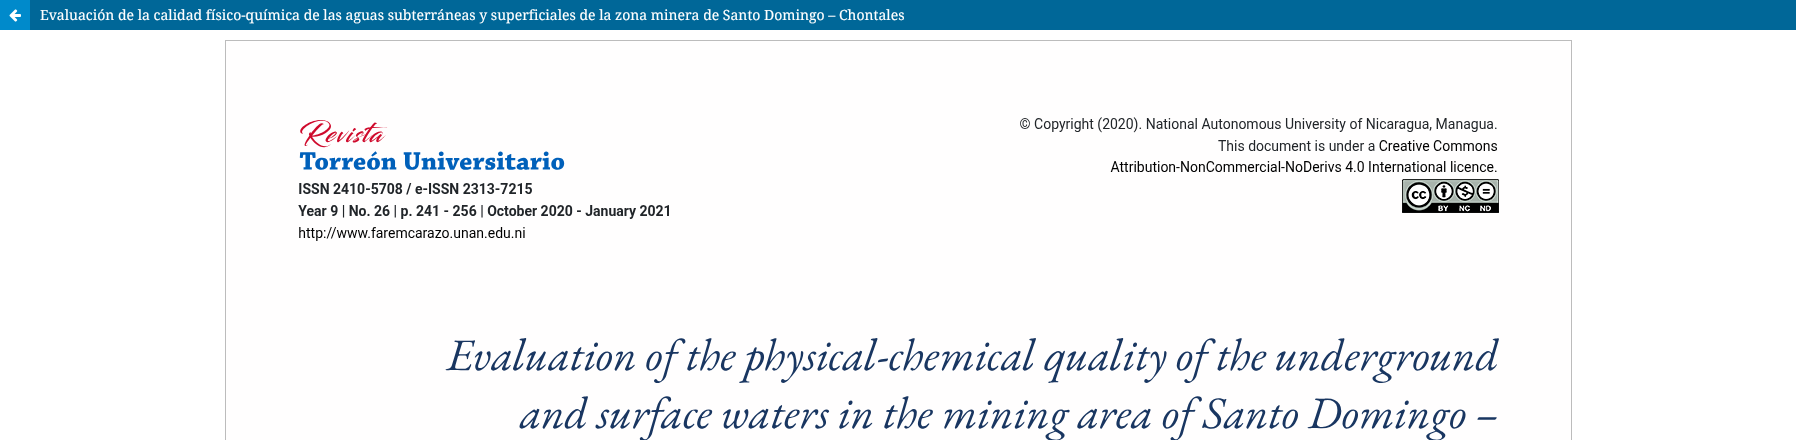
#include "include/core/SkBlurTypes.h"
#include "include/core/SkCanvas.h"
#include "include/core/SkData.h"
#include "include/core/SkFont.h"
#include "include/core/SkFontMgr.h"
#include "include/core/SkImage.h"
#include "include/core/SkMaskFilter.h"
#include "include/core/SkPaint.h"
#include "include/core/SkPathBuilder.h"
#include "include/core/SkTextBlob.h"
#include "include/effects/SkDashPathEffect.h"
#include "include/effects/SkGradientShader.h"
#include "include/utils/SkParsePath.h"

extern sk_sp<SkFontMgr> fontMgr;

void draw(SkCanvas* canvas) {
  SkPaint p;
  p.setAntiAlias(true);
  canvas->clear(SK_ColorWHITE);
  p.setColor(SkColorSetRGB(0, 103, 152));
  canvas->drawRect(SkRect::MakeLTRB(30, 0, 1796, 30), p);
  p.setColor(SkColorSetRGB(0, 138, 203));
  canvas->drawRect(SkRect::MakeLTRB(0, 0, 30, 30), p);
  canvas->drawImageRect(SkImages::DeferredFromEncodedData(SkData::MakeFromFileName("images/1.png")), SkRect::MakeLTRB(9, 9, 21, 22), SkSamplingOptions());
  canvas->drawImageRect(SkImages::DeferredFromEncodedData(SkData::MakeFromFileName("images/2.png")), SkRect::MakeLTRB(225, 40, 1572, 440), SkSamplingOptions());
  SkFont font1(fontMgr->matchFamilyStyle("Noto Serif", SkFontStyle::Normal()), 14);
  font1.setSubpixel(true);
  p.setColor(SK_ColorWHITE);
  canvas->drawString("Evaluación de la calidad físico-química de las aguas subterráneas y superficiales de la zona minera de Santo Domingo – Chontales", 40, 20, font1, p);
}
